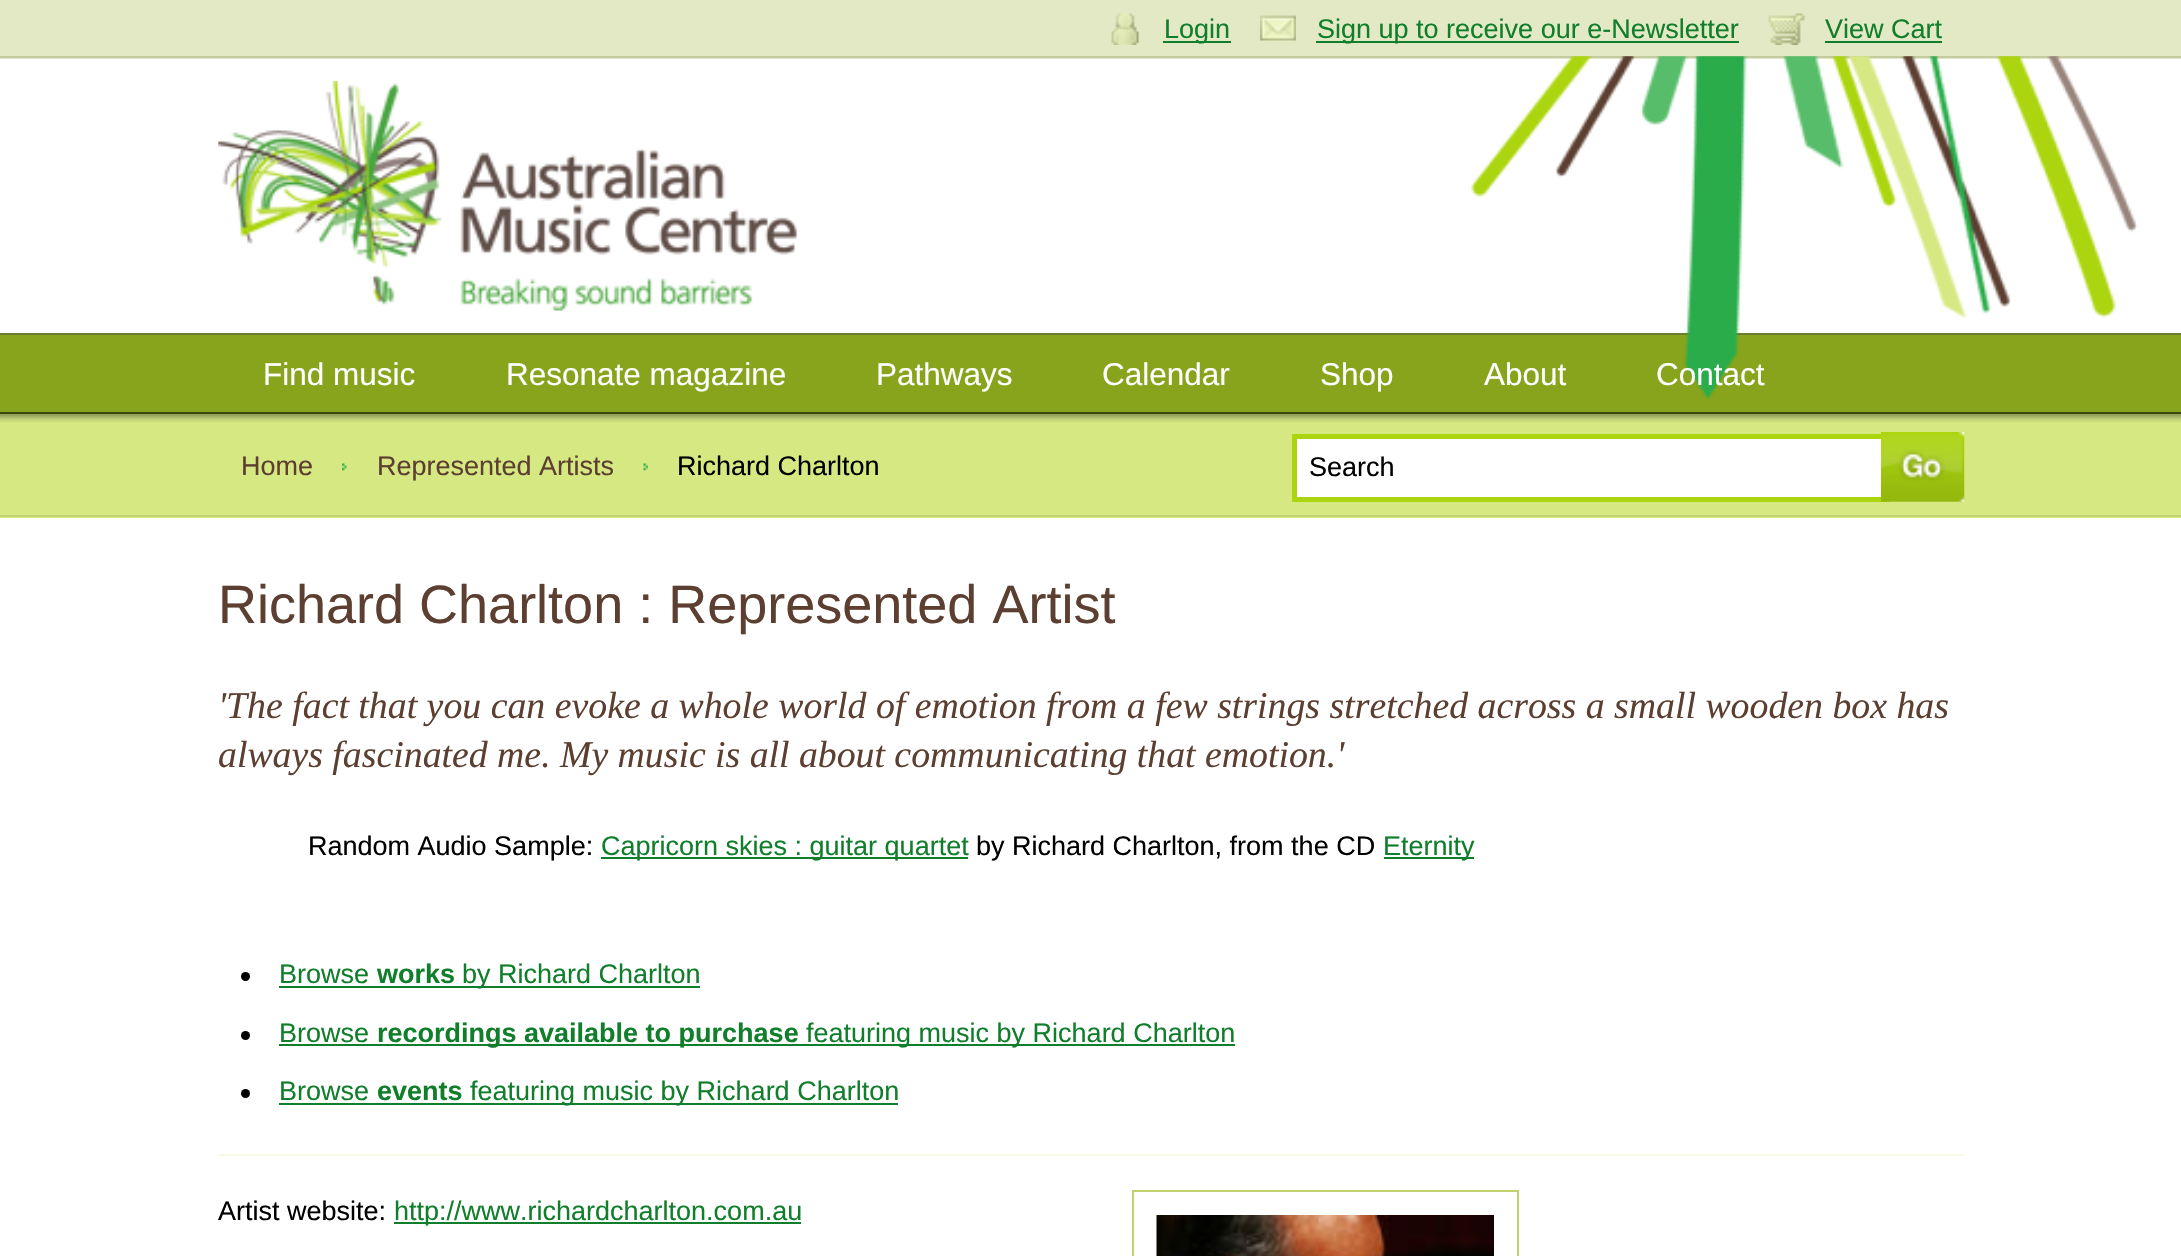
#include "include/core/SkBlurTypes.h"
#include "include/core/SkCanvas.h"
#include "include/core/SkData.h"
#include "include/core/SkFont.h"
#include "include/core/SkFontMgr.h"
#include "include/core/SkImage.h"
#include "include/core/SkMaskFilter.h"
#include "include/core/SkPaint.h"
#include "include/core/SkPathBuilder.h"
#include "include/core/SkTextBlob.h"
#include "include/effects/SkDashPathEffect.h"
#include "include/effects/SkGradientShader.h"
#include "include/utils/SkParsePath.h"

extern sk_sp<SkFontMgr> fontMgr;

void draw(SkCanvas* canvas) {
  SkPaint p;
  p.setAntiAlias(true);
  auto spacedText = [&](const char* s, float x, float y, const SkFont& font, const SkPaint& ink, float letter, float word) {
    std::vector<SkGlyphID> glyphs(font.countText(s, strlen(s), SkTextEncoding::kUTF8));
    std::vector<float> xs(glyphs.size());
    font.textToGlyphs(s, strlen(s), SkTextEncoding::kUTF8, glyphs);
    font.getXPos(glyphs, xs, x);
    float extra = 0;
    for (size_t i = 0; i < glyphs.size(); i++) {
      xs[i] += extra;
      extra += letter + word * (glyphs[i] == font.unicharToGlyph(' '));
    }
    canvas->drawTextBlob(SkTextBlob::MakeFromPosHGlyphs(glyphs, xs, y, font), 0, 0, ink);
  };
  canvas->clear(SkColorSetRGB(227, 233, 196));
  p.setColor(SkColorSetRGB(196, 203, 161));
  canvas->drawRect(SkRect::MakeLTRB(0, 56, 2181, 58), p);
  canvas->drawImageRect(SkImages::DeferredFromEncodedData(SkData::MakeFromFileName("images/1.png")), SkRect::MakeLTRB(1111, 13, 1140, 45), SkSamplingOptions());
  p.setColor(SkColorSetRGB(16, 126, 43));
  canvas->drawRect(SkRect::MakeLTRB(1163, 41, 1231, 43), p);
  canvas->drawImageRect(SkImages::DeferredFromEncodedData(SkData::MakeFromFileName("images/2.png")), SkRect::MakeLTRB(1260, 15, 1296, 41), SkSamplingOptions());
  canvas->drawRect(SkRect::MakeLTRB(1316, 41, 1739, 43), p);
  canvas->drawImageRect(SkImages::DeferredFromEncodedData(SkData::MakeFromFileName("images/3.png")), SkRect::MakeLTRB(1768, 13, 1805, 45), SkSamplingOptions());
  canvas->drawRect(SkRect::MakeLTRB(1825, 41, 1942, 43), p);
  p.setColor(SK_ColorWHITE);
  canvas->drawRect(SkRect::MakeLTRB(0, 59, 2181, 333), p);
  canvas->drawImageRect(SkImages::DeferredFromEncodedData(SkData::MakeFromFileName("images/4.png")), SkRect::MakeLTRB(218, 81, 798, 311), SkSamplingOptions());
  p.setColor(SkColorSetRGB(135, 164, 28));
  canvas->drawRect(SkRect::MakeLTRB(0, 335, 2181, 412), p);
  p.setColor(SkColorSetRGB(108, 124, 47));
  canvas->drawRect(SkRect::MakeLTRB(0, 333, 2181, 335), p);
  p.setColor(SkColorSetRGB(58, 71, 14));
  canvas->drawRect(SkRect::MakeLTRB(0, 412, 2181, 414), p);
  p.setColor(SkColorSetRGB(214, 232, 130));
  canvas->drawRect(SkRect::MakeLTRB(0, 423, 2181, 518), p);
  canvas->drawImageRect(SkImages::DeferredFromEncodedData(SkData::MakeFromFileName("images/5.png")), SkRect::MakeLTRB(0, 414, 2181, 423), SkSamplingOptions());
  p.setColor(SkColorSetRGB(192, 210, 112));
  canvas->drawRect(SkRect::MakeLTRB(0, 515, 2181, 517), p);
  canvas->drawImageRect(SkImages::DeferredFromEncodedData(SkData::MakeFromFileName("images/6.png")), SkRect::MakeLTRB(342, 463, 347, 471), SkSamplingOptions());
  canvas->drawImageRect(SkImages::DeferredFromEncodedData(SkData::MakeFromFileName("images/7.png")), SkRect::MakeLTRB(643, 463, 648, 471), SkSamplingOptions());
  p.setColor(SK_ColorWHITE);
  canvas->drawRect(SkRect::MakeLTRB(1297, 439, 1881, 497), p);
  p.setStyle(SkPaint::kStroke_Style);
  p.setStrokeWidth(5);
  p.setColor(SkColorSetRGB(171, 213, 14));
  canvas->drawRect(SkRect::MakeLTRB(1294.5f, 436.5f, 1887.5f, 499.5f), p);
  canvas->drawImageRect(SkImages::DeferredFromEncodedData(SkData::MakeFromFileName("images/8.png")), SkRect::MakeLTRB(1881, 432, 1965, 502), SkSamplingOptions());
  p.setStyle(SkPaint::kFill_Style);
  p.setColor(SK_ColorWHITE);
  canvas->drawRect(SkRect::MakeLTRB(0, 518, 2181, 1256), p);
  p.setColor(SkColorSetRGB(16, 126, 43));
  canvas->drawRect(SkRect::MakeLTRB(601, 857, 968, 859), p);
  canvas->drawRect(SkRect::MakeLTRB(1384, 857, 1474, 859), p);
  p.setColor(SK_ColorBLACK);
  canvas->drawCircle(245.5f, 976.5f, 4.5f, p);
  p.setColor(SkColorSetRGB(16, 126, 43));
  canvas->drawRect(SkRect::MakeLTRB(279, 986, 700, 988), p);
  p.setColor(SK_ColorBLACK);
  canvas->drawCircle(245.5f, 1035.5f, 4.5f, p);
  p.setColor(SkColorSetRGB(16, 126, 43));
  canvas->drawRect(SkRect::MakeLTRB(279, 1044, 1235, 1046), p);
  p.setColor(SK_ColorBLACK);
  canvas->drawCircle(245.5f, 1093.5f, 4.5f, p);
  p.setColor(SkColorSetRGB(16, 126, 43));
  canvas->drawRect(SkRect::MakeLTRB(279, 1103, 898, 1105), p);
  p.setColor(SkColorSetRGB(247, 250, 230));
  canvas->drawRect(SkRect::MakeLTRB(218, 1154, 1964, 1156), p);
  p.setColor(SkColorSetRGB(16, 126, 43));
  canvas->drawRect(SkRect::MakeLTRB(394, 1222, 801, 1224), p);
  p.setStyle(SkPaint::kStroke_Style);
  p.setStrokeWidth(2);
  p.setColor(SkColorSetRGB(192, 210, 112));
  canvas->drawRect(SkRect::MakeLTRB(1133, 1191, 1518, 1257), p);
  canvas->drawImageRect(SkImages::DeferredFromEncodedData(SkData::MakeFromFileName("images/9.png")), SkRect::MakeLTRB(1156, 1215, 1494, 1256), SkSamplingOptions());
  canvas->drawImageRect(SkImages::DeferredFromEncodedData(SkData::MakeFromFileName("images/10.png")), SkRect::MakeLTRB(1471, 56, 2138, 399), SkSamplingOptions());
  SkFont font1(fontMgr->matchFamilyStyle("Liberation Sans", SkFontStyle::Normal()), 27);
  font1.setSubpixel(true);
  p.setStyle(SkPaint::kFill_Style);
  p.setColor(SkColorSetRGB(16, 126, 43));
  canvas->drawString("Login", 1164, 38, font1, p);
  canvas->drawString("Sign up to receive our e-Newsletter", 1317, 38, font1, p);
  canvas->drawString("View Cart", 1825, 38, font1, p);
  SkFont font2(fontMgr->matchFamilyStyle("Liberation Sans", SkFontStyle::Normal()), 31.5f);
  font2.setSubpixel(true);
  p.setColor(SK_ColorWHITE);
  canvas->drawString("Find music", 263, 385, font2, p);
  canvas->drawString("Resonate magazine", 506, 385, font2, p);
  canvas->drawString("Pathways", 876, 385, font2, p);
  canvas->drawString("Calendar", 1102, 385, font2, p);
  canvas->drawString("Shop", 1320, 385, font2, p);
  canvas->drawString("About", 1484, 385, font2, p);
  canvas->drawString("Contact", 1656, 385, font2, p);
  p.setColor(SkColorSetRGB(92, 63, 49));
  canvas->drawString("Home", 241, 475, font1, p);
  canvas->drawString("Represented Artists", 377, 475, font1, p);
  p.setColor(SK_ColorBLACK);
  canvas->drawString("Richard Charlton", 677, 475, font1, p);
  canvas->drawString("Search", 1309, 476, font1, p);
  SkFont font3(fontMgr->matchFamilyStyle("Liberation Sans", SkFontStyle::Normal()), 54);
  font3.setSubpixel(true);
  p.setColor(SkColorSetRGB(92, 63, 49));
  canvas->drawString("Richard Charlton : Represented Artist", 218, 623, font3, p);
  SkFont font4(fontMgr->matchFamilyStyle("Liberation Serif", SkFontStyle::Italic()), 37.8f);
  font4.setSubpixel(true);
  canvas->drawString("'The fact that you can evoke a whole world of emotion from a few strings stretched across a small wooden box has", 218, 718, font4, p);
  spacedText("always fascinated me. My music is all about communicating that emotion.'", 218, 767, font4, p, 0, -0.1f);
  p.setColor(SK_ColorBLACK);
  canvas->drawString("Random Audio Sample:", 308, 855, font1, p);
  p.setColor(SkColorSetRGB(16, 126, 43));
  canvas->drawString("Capricorn skies : guitar quartet", 601, 855, font1, p);
  p.setColor(SK_ColorBLACK);
  canvas->drawString("by Richard Charlton, from the CD", 976, 855, font1, p);
  p.setColor(SkColorSetRGB(16, 126, 43));
  canvas->drawString("Eternity", 1383, 855, font1, p);
  canvas->drawString("Browse", 279, 983, font1, p);
  SkFont font5(fontMgr->matchFamilyStyle("Liberation Sans", SkFontStyle::Bold()), 27);
  font5.setSubpixel(true);
  canvas->drawString("works", 377, 983, font5, p);
  canvas->drawString("by Richard Charlton", 462, 983, font1, p);
  canvas->drawString("Browse", 279, 1042, font1, p);
  canvas->drawString("recordings available to purchase", 377, 1042, font5, p);
  canvas->drawString("featuring music by Richard Charlton", 806, 1042, font1, p);
  canvas->drawString("Browse", 279, 1100, font1, p);
  canvas->drawString("events", 377, 1100, font5, p);
  canvas->drawString("featuring music by Richard Charlton", 470, 1100, font1, p);
  p.setColor(SK_ColorBLACK);
  canvas->drawString("Artist website:", 218, 1220, font1, p);
  p.setColor(SkColorSetRGB(16, 126, 43));
  canvas->drawString("http://www.richardcharlton.com.au", 394, 1220, font1, p);
}
